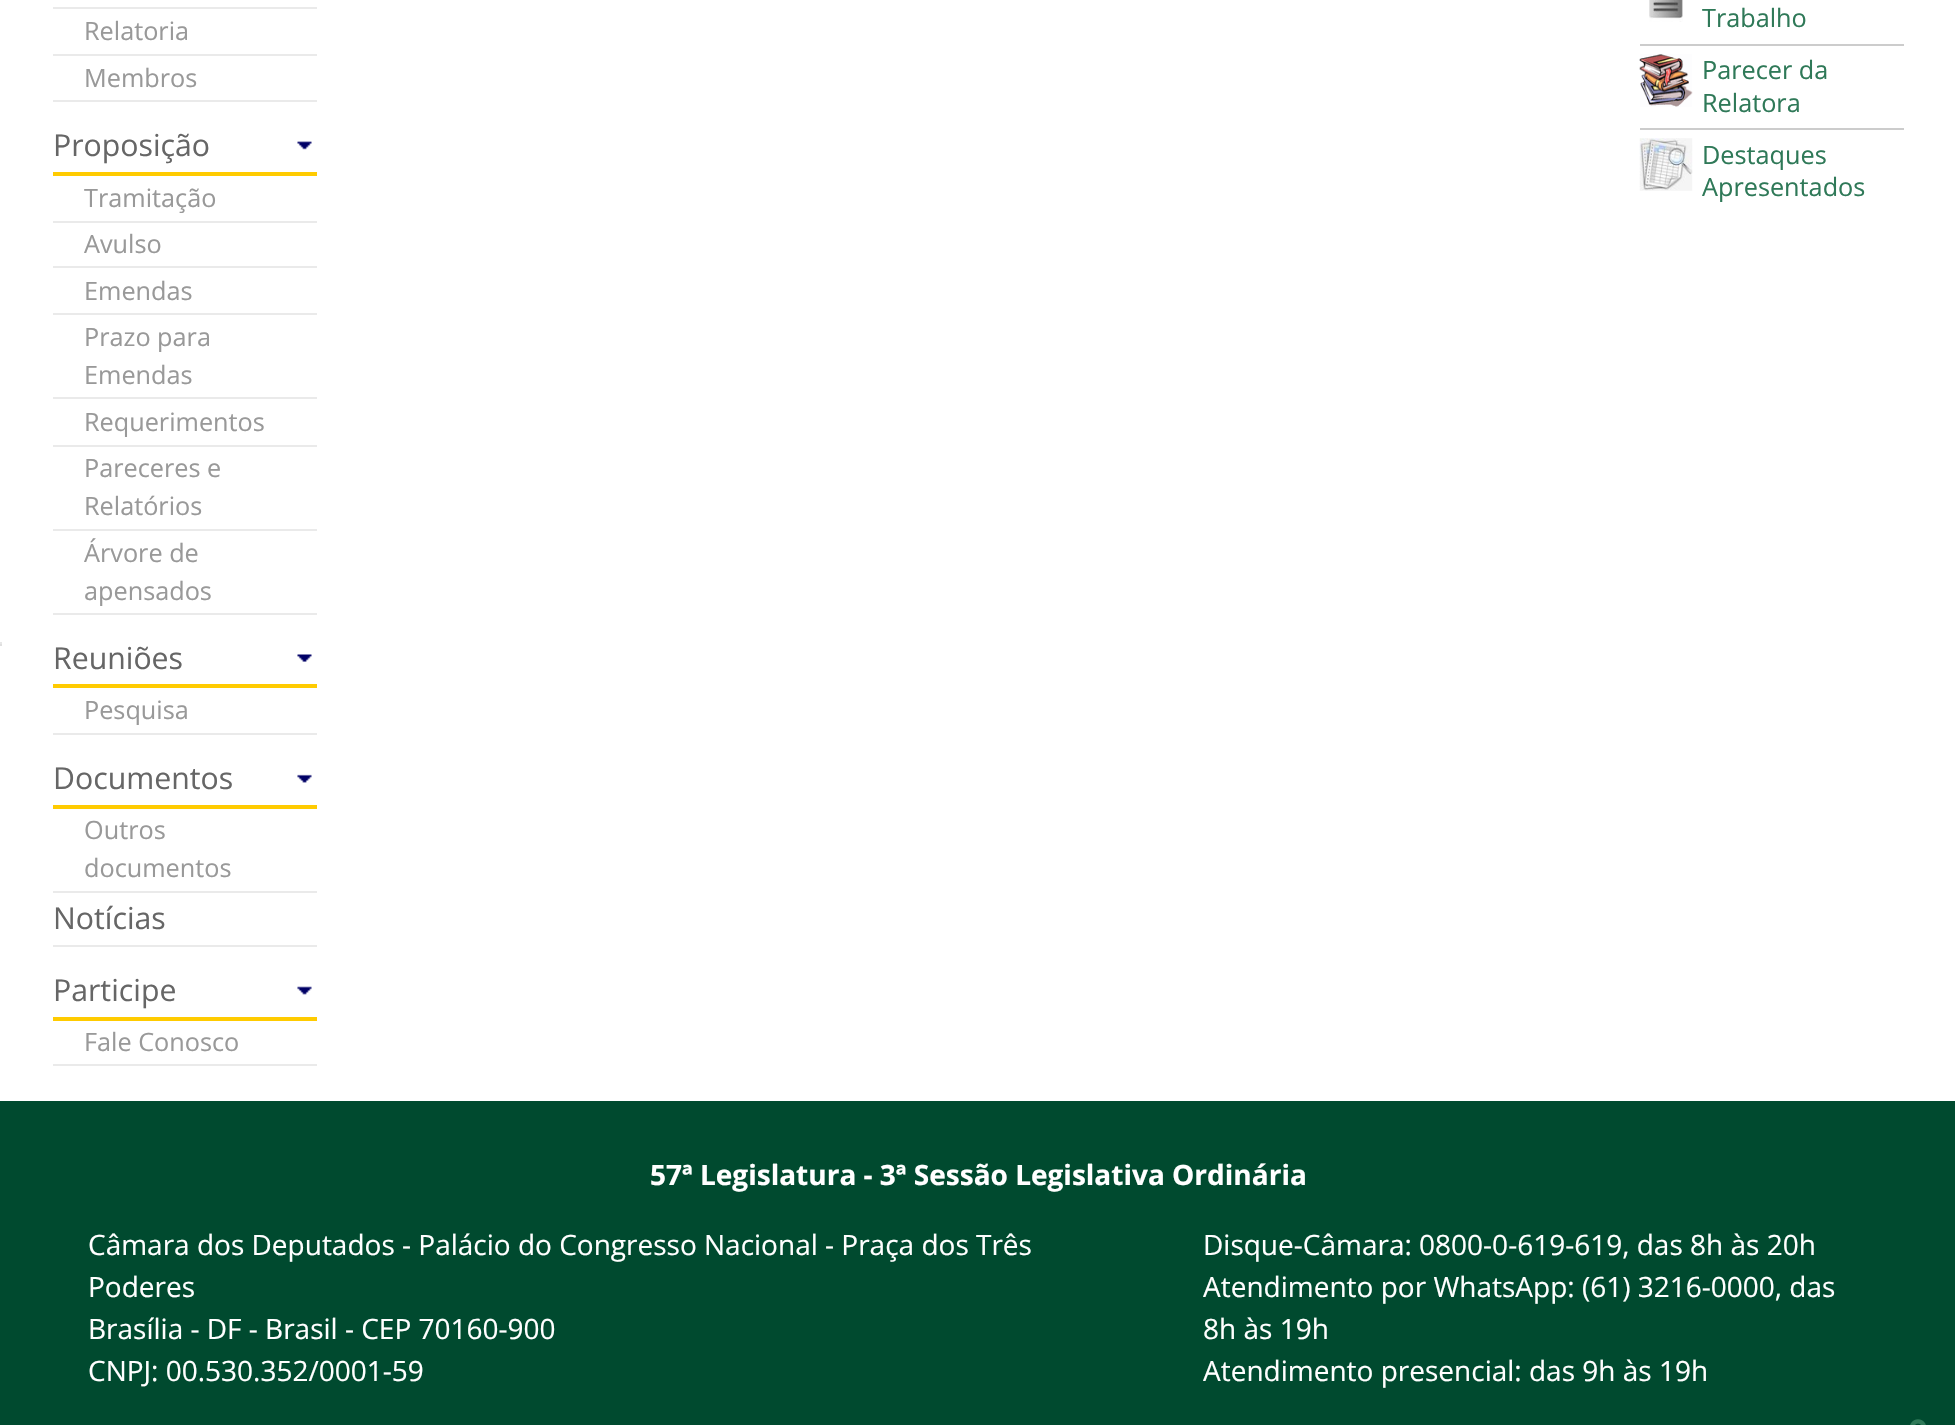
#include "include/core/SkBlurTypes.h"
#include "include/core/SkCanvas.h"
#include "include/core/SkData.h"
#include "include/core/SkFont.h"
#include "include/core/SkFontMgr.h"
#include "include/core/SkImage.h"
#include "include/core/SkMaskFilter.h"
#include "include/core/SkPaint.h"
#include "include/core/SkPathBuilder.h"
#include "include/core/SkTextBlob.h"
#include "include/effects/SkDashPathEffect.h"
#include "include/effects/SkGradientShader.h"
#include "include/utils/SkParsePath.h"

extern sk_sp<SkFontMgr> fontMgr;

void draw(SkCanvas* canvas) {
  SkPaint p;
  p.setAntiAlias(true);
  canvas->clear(SK_ColorWHITE);
  p.setColor(SkColorSetRGB(223, 223, 223));
  canvas->drawCircle(1, 643, 1, p);
  canvas->drawRect(SkRect::MakeLTRB(0, 644, 2, 646), p);
  p.setColor(SkColorSetRGB(234, 234, 234));
  canvas->drawRect(SkRect::MakeLTRB(53, 7, 317, 9), p);
  canvas->drawRect(SkRect::MakeLTRB(53, 54, 317, 56), p);
  canvas->drawRect(SkRect::MakeLTRB(53, 100, 317, 102), p);
  canvas->drawImageRect(SkImages::DeferredFromEncodedData(SkData::MakeFromFileName("images/1.png")), SkRect::MakeLTRB(297, 141, 312, 150), SkSamplingOptions());
  p.setColor(SkColorSetRGB(255, 203, 0));
  canvas->drawRect(SkRect::MakeLTRB(53, 172, 317, 176), p);
  p.setColor(SkColorSetRGB(234, 234, 234));
  canvas->drawRect(SkRect::MakeLTRB(53, 221, 317, 223), p);
  canvas->drawRect(SkRect::MakeLTRB(53, 266, 317, 268), p);
  canvas->drawRect(SkRect::MakeLTRB(53, 313, 317, 315), p);
  canvas->drawRect(SkRect::MakeLTRB(53, 397, 317, 399), p);
  canvas->drawRect(SkRect::MakeLTRB(53, 445, 317, 447), p);
  canvas->drawRect(SkRect::MakeLTRB(53, 529, 317, 531), p);
  canvas->drawRect(SkRect::MakeLTRB(53, 613, 317, 615), p);
  canvas->drawImageRect(SkImages::DeferredFromEncodedData(SkData::MakeFromFileName("images/2.png")), SkRect::MakeLTRB(297, 654, 312, 662), SkSamplingOptions());
  p.setColor(SkColorSetRGB(255, 203, 0));
  canvas->drawRect(SkRect::MakeLTRB(53, 684, 317, 688), p);
  p.setColor(SkColorSetRGB(234, 234, 234));
  canvas->drawRect(SkRect::MakeLTRB(53, 733, 317, 735), p);
  canvas->drawImageRect(SkImages::DeferredFromEncodedData(SkData::MakeFromFileName("images/3.png")), SkRect::MakeLTRB(297, 774, 312, 783), SkSamplingOptions());
  p.setColor(SkColorSetRGB(255, 203, 0));
  canvas->drawRect(SkRect::MakeLTRB(53, 805, 317, 809), p);
  p.setColor(SkColorSetRGB(234, 234, 234));
  canvas->drawRect(SkRect::MakeLTRB(53, 891, 317, 893), p);
  canvas->drawRect(SkRect::MakeLTRB(53, 945, 317, 947), p);
  canvas->drawImageRect(SkImages::DeferredFromEncodedData(SkData::MakeFromFileName("images/4.png")), SkRect::MakeLTRB(297, 986, 312, 995), SkSamplingOptions());
  p.setColor(SkColorSetRGB(255, 203, 0));
  canvas->drawRect(SkRect::MakeLTRB(53, 1017, 317, 1021), p);
  p.setColor(SkColorSetRGB(234, 234, 234));
  canvas->drawRect(SkRect::MakeLTRB(53, 1064, 317, 1066), p);
  p.setColor(SkColorSetRGB(204, 204, 204));
  canvas->drawRect(SkRect::MakeLTRB(1640, 44, 1904, 46), p);
  canvas->drawImageRect(SkImages::DeferredFromEncodedData(SkData::MakeFromFileName("images/5.png")), SkRect::MakeLTRB(1649, 0, 1683, 22), SkSamplingOptions());
  canvas->drawRect(SkRect::MakeLTRB(1640, 128, 1904, 130), p);
  canvas->drawImageRect(SkImages::DeferredFromEncodedData(SkData::MakeFromFileName("images/6.png")), SkRect::MakeLTRB(1639, 54, 1693, 107), SkSamplingOptions());
  canvas->drawImageRect(SkImages::DeferredFromEncodedData(SkData::MakeFromFileName("images/7.png")), SkRect::MakeLTRB(1639, 138, 1693, 191), SkSamplingOptions());
  p.setColor(SkColorSetRGB(0, 74, 47));
  canvas->drawRect(SkRect::MakeLTRB(0, 1101, 1955, 1425), p);
  canvas->drawImageRect(SkImages::DeferredFromEncodedData(SkData::MakeFromFileName("images/8.png")), SkRect::MakeLTRB(1910, 1419, 1926, 1425), SkSamplingOptions());
  SkFont font1(fontMgr->matchFamilyStyle("Open Sans", SkFontStyle::Normal()), 25.25f);
  font1.setSubpixel(true);
  p.setColor(SkColorSetRGB(153, 153, 153));
  canvas->drawString("Relatoria", 84, 40, font1, p);
  canvas->drawString("Membros", 84, 87, font1, p);
  SkFont font2(fontMgr->matchFamilyStyle("Open Sans", SkFontStyle::Normal()), 30.25f);
  font2.setSubpixel(true);
  p.setColor(SkColorSetRGB(102, 102, 102));
  canvas->drawString("Proposição", 53, 156, font2, p);
  p.setColor(SkColorSetRGB(153, 153, 153));
  canvas->drawString("Tramitação", 84, 207, font1, p);
  canvas->drawString("Avulso", 84, 253, font1, p);
  canvas->drawString("Emendas", 84, 300, font1, p);
  canvas->drawString("Prazo para", 84, 346, font1, p);
  canvas->drawString("Emendas", 84, 384, font1, p);
  canvas->drawString("Requerimentos", 84, 431, font1, p);
  canvas->drawString("Pareceres e", 84, 477, font1, p);
  canvas->drawString("Relatórios", 84, 515, font1, p);
  canvas->drawString("Árvore de", 84, 562, font1, p);
  canvas->drawString("apensados", 84, 600, font1, p);
  p.setColor(SkColorSetRGB(102, 102, 102));
  canvas->drawString("Reuniões", 53, 669, font2, p);
  p.setColor(SkColorSetRGB(153, 153, 153));
  canvas->drawString("Pesquisa", 84, 719, font1, p);
  p.setColor(SkColorSetRGB(102, 102, 102));
  canvas->drawString("Documentos", 53, 789, font2, p);
  p.setColor(SkColorSetRGB(153, 153, 153));
  canvas->drawString("Outros", 84, 839, font1, p);
  canvas->drawString("documentos", 84, 877, font1, p);
  p.setColor(SkColorSetRGB(102, 102, 102));
  canvas->drawString("Notícias", 53, 929, font2, p);
  canvas->drawString("Participe", 53, 1001, font2, p);
  p.setColor(SkColorSetRGB(153, 153, 153));
  canvas->drawString("Fale Conosco", 84, 1051, font1, p);
  p.setColor(SkColorSetRGB(47, 121, 88));
  canvas->drawString("Trabalho", 1702, 27, font1, p);
  canvas->drawString("Parecer da", 1702, 79, font1, p);
  canvas->drawString("Relatora", 1702, 112, font1, p);
  canvas->drawString("Destaques", 1702, 164, font1, p);
  canvas->drawString("Apresentados", 1702, 196, font1, p);
  SkFont font3(fontMgr->matchFamilyStyle("Open Sans", SkFontStyle::Bold()), 28);
  font3.setSubpixel(true);
  p.setColor(SK_ColorWHITE);
  canvas->drawString("57ª Legislatura - 3ª Sessão Legislativa Ordinária", 650, 1185, font3, p);
  SkFont font4(fontMgr->matchFamilyStyle("Open Sans", SkFontStyle::Normal()), 28);
  font4.setSubpixel(true);
  canvas->drawString("Câmara dos Deputados - Palácio do Congresso Nacional - Praça dos Três", 88, 1255, font4, p);
  canvas->drawString("Poderes", 88, 1297, font4, p);
  canvas->drawString("Brasília - DF - Brasil - CEP 70160-900", 88, 1339, font4, p);
  canvas->drawString("CNPJ: 00.530.352/0001-59", 88, 1381, font4, p);
  canvas->drawString("Disque-Câmara: 0800-0-619-619, das 8h às 20h", 1203, 1255, font4, p);
  canvas->drawString("Atendimento por WhatsApp: (61) 3216-0000, das", 1203, 1297, font4, p);
  canvas->drawString("8h às 19h", 1203, 1339, font4, p);
  canvas->drawString("Atendimento presencial: das 9h às 19h", 1203, 1381, font4, p);
}
